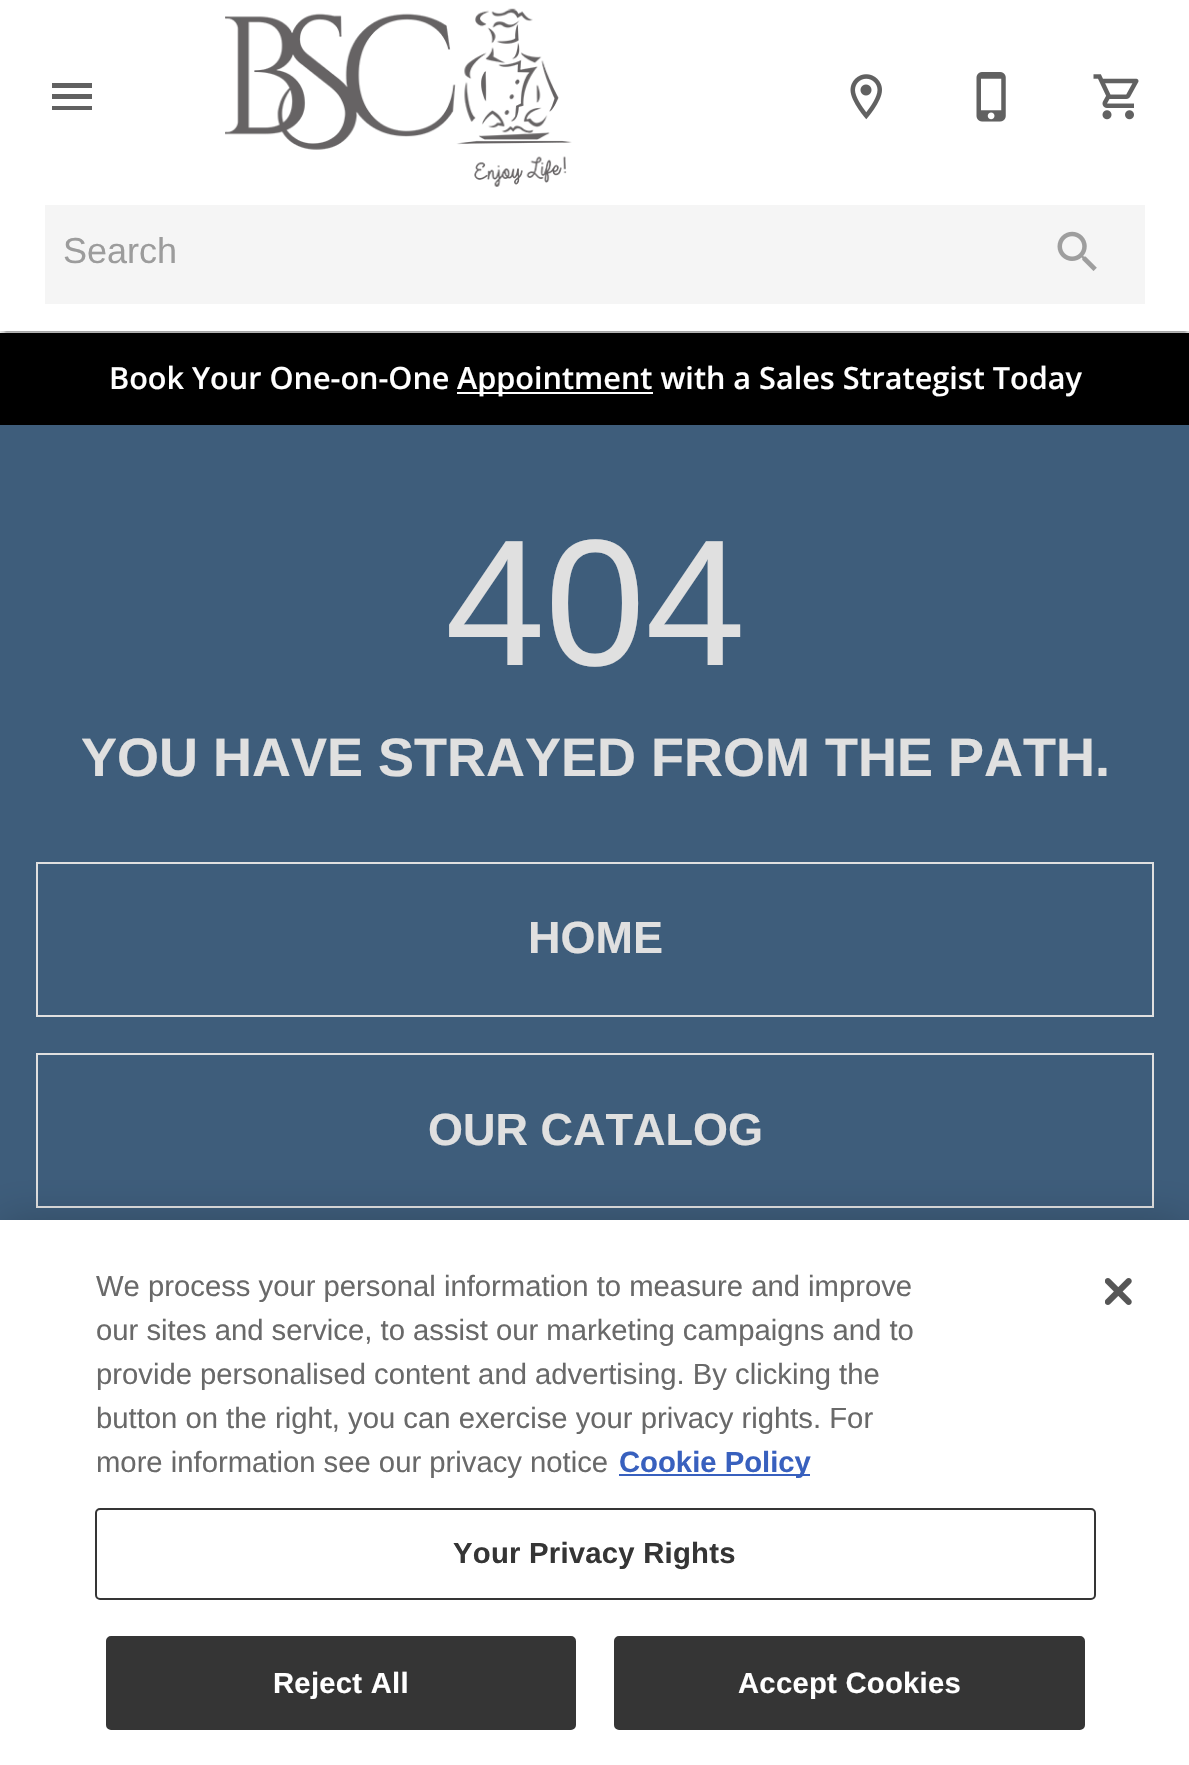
#include "include/core/SkBlurTypes.h"
#include "include/core/SkCanvas.h"
#include "include/core/SkData.h"
#include "include/core/SkFont.h"
#include "include/core/SkFontMgr.h"
#include "include/core/SkImage.h"
#include "include/core/SkMaskFilter.h"
#include "include/core/SkPaint.h"
#include "include/core/SkPathBuilder.h"
#include "include/core/SkTextBlob.h"
#include "include/effects/SkDashPathEffect.h"
#include "include/effects/SkGradientShader.h"
#include "include/utils/SkParsePath.h"

extern sk_sp<SkFontMgr> fontMgr;

void draw(SkCanvas* canvas) {
  SkPaint p;
  p.setAntiAlias(true);
  auto spacedText = [&](const char* s, float x, float y, const SkFont& font, const SkPaint& ink, float letter, float word) {
    std::vector<SkGlyphID> glyphs(font.countText(s, strlen(s), SkTextEncoding::kUTF8));
    std::vector<float> xs(glyphs.size());
    font.textToGlyphs(s, strlen(s), SkTextEncoding::kUTF8, glyphs);
    font.getXPos(glyphs, xs, x);
    float extra = 0;
    for (size_t i = 0; i < glyphs.size(); i++) {
      xs[i] += extra;
      extra += letter + word * (glyphs[i] == font.unicharToGlyph(' '));
    }
    canvas->drawTextBlob(SkTextBlob::MakeFromPosHGlyphs(glyphs, xs, y, font), 0, 0, ink);
  };
  canvas->clear(SK_ColorWHITE);
  p.setColor(SK_ColorBLACK);
  canvas->drawRect(SkRect::MakeLTRB(0, 333, 1189, 425), p);
  p.setColor(SkColorSetARGB(31, 0, 0, 0));
  p.setMaskFilter(SkMaskFilter::MakeBlur(kNormal_SkBlurStyle, 5.5f));
  canvas->drawRect(SkRect::MakeLTRB(0, 0, 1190, 333), p);
  p.setMaskFilter(nullptr);
  p.setColor(SkColorSetARGB(36, 0, 0, 0));
  p.setMaskFilter(SkMaskFilter::MakeBlur(kNormal_SkBlurStyle, 2));
  canvas->drawRect(SkRect::MakeLTRB(0, 2, 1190, 335), p);
  p.setMaskFilter(nullptr);
  p.setColor(SkColorSetARGB(51, 0, 0, 0));
  p.setMaskFilter(SkMaskFilter::MakeBlur(kNormal_SkBlurStyle, 1));
  canvas->drawRect(SkRect::MakeLTRB(5, 9, 1186, 333), p);
  p.setMaskFilter(nullptr);
  p.setColor(SK_ColorWHITE);
  canvas->drawRect(SkRect::MakeLTRB(0, 0, 1189, 331), p);
  p.setColor(SkColorSetRGB(97, 97, 97));
  canvas->drawPath(SkPathBuilder().moveTo(52, 110).lineTo(92, 110).lineTo(92, 106).lineTo(52, 106).close().moveTo(52, 99).lineTo(92, 99).lineTo(92, 94).lineTo(52, 94).close().moveTo(52, 83).lineTo(52, 88).lineTo(92, 88).lineTo(92, 83).close().detach(), p);
  canvas->drawImageRect(SkImages::DeferredFromEncodedData(SkData::MakeFromFileName("images/1.png")), SkRect::MakeLTRB(225, 8, 572, 187), SkSamplingOptions());
  canvas->drawImageRect(SkImages::DeferredFromEncodedData(SkData::MakeFromFileName("images/2.png")), SkRect::MakeLTRB(850, 74, 882, 120), SkSamplingOptions());
  canvas->drawImageRect(SkImages::DeferredFromEncodedData(SkData::MakeFromFileName("images/3.png")), SkRect::MakeLTRB(976, 72, 1006, 122), SkSamplingOptions());
  canvas->drawImageRect(SkImages::DeferredFromEncodedData(SkData::MakeFromFileName("images/4.png")), SkRect::MakeLTRB(1093, 74, 1139, 120), SkSamplingOptions());
  p.setColor(SkColorSetRGB(245, 245, 245));
  canvas->drawRect(SkRect::MakeLTRB(45, 205, 1145, 304), p);
  canvas->drawImageRect(SkImages::DeferredFromEncodedData(SkData::MakeFromFileName("images/5.png")), SkRect::MakeLTRB(1057, 231, 1097, 271), SkSamplingOptions());
  p.setColor(SK_ColorWHITE);
  canvas->drawRect(SkRect::MakeLTRB(457, 392, 653, 394), p);
  p.setColor(SkColorSetRGB(62, 93, 123));
  canvas->drawRect(SkRect::MakeLTRB(0, 425, 1189, 1220), p);
  p.setStyle(SkPaint::kStroke_Style);
  p.setStrokeWidth(2);
  p.setColor(SkColorSetRGB(224, 224, 224));
  canvas->drawRect(SkRect::MakeLTRB(37, 863, 1153, 1016), p);
  canvas->drawRect(SkRect::MakeLTRB(37, 1054, 1153, 1207), p);
  p.setStyle(SkPaint::kFill_Style);
  p.setColor(SkColorSetARGB(51, 0, 0, 0));
  p.setMaskFilter(SkMaskFilter::MakeBlur(kNormal_SkBlurStyle, 20));
  canvas->drawRect(SkRect::MakeLTRB(0, 1220, 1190, 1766), p);
  p.setMaskFilter(nullptr);
  p.setColor(SK_ColorWHITE);
  canvas->drawRect(SkRect::MakeLTRB(0, 1220, 1189, 1765), p);
  p.setColor(SkColorSetRGB(56, 96, 190));
  canvas->drawRect(SkRect::MakeLTRB(619, 1474, 810, 1476), p);
  p.setStyle(SkPaint::kStroke_Style);
  p.setColor(SkColorSetRGB(53, 53, 53));
  canvas->drawRoundRect(SkRect::MakeLTRB(96, 1509, 1095, 1599), 4, 4, p);
  p.setStyle(SkPaint::kFill_Style);
  canvas->drawRoundRect(SkRect::MakeLTRB(107, 1637, 575, 1729), 4, 4, p);
  p.setStyle(SkPaint::kStroke_Style);
  canvas->drawRoundRect(SkRect::MakeLTRB(107, 1637, 575, 1729), 4, 4, p);
  p.setStyle(SkPaint::kFill_Style);
  canvas->drawRoundRect(SkRect::MakeLTRB(615, 1637, 1084, 1729), 4, 4, p);
  p.setStyle(SkPaint::kStroke_Style);
  canvas->drawRoundRect(SkRect::MakeLTRB(615, 1637, 1084, 1729), 4, 4, p);
  canvas->drawImageRect(SkImages::DeferredFromEncodedData(SkData::MakeFromFileName("images/6.png")), SkRect::MakeLTRB(1105, 1278, 1132, 1305), SkSamplingOptions());
  SkFont font1(fontMgr->matchFamilyStyle("Liberation Sans", SkFontStyle::Normal()), 36);
  font1.setSubpixel(true);
  p.setStyle(SkPaint::kFill_Style);
  p.setColor(SkColorSetRGB(156, 156, 156));
  canvas->drawString("Search", 63, 263, font1, p);
  SkFont font2(fontMgr->matchFamilyStyle("Open Sans", SkFontStyle(600, SkFontStyle::kNormal_Width, SkFontStyle::kUpright_Slant)), 30.6f);
  font2.setSubpixel(true);
  p.setColor(SK_ColorWHITE);
  canvas->drawString("Book Your One-on-One", 109, 389, font2, p);
  canvas->drawString("Appointment with a Sales Strategist Today", 457, 389, font2, p);
  SkFont font3(fontMgr->matchFamilyStyle("Liberation Sans", SkFontStyle::Normal()), 180);
  font3.setSubpixel(true);
  p.setColor(SkColorSetRGB(224, 224, 224));
  canvas->drawString("404", 445, 665, font3, p);
  SkFont font4(fontMgr->matchFamilyStyle("Liberation Sans", SkFontStyle::Bold()), 54);
  font4.setSubpixel(true);
  canvas->drawString("YOU HAVE STRAYED FROM THE PATH.", 81, 776, font4, p);
  SkFont font5(fontMgr->matchFamilyStyle("Liberation Sans", SkFontStyle::Bold()), 45);
  font5.setSubpixel(true);
  canvas->drawString("HOME", 528, 953, font5, p);
  canvas->drawString("OUR CATALOG", 428, 1145, font5, p);
  SkFont font6(fontMgr->matchFamilyStyle("Liberation Sans", SkFontStyle::Normal()), 29.25f);
  font6.setSubpixel(true);
  p.setColor(SkColorSetRGB(105, 105, 105));
  canvas->drawString("We process your personal information to measure and improve", 96, 1296, font6, p);
  canvas->drawString("our sites and service, to assist our marketing campaigns and to", 96, 1340, font6, p);
  canvas->drawString("provide personalised content and advertising. By clicking the", 96, 1384, font6, p);
  canvas->drawString("button on the right, you can exercise your privacy rights. For", 96, 1428, font6, p);
  canvas->drawString("more information see our privacy notice", 96, 1472, font6, p);
  SkFont font7(fontMgr->matchFamilyStyle("Liberation Sans", SkFontStyle::Bold()), 29.25f);
  font7.setSubpixel(true);
  p.setColor(SkColorSetRGB(56, 96, 190));
  canvas->drawString("Cookie Policy", 619, 1472, font7, p);
  p.setColor(SkColorSetRGB(53, 53, 53));
  spacedText("Your Privacy Rights", 453, 1563, font7, p, 0.25f, 0);
  p.setColor(SK_ColorWHITE);
  spacedText("Reject All", 273, 1693, font7, p, 0.25f, 0);
  spacedText("Accept Cookies", 738, 1693, font7, p, 0.25f, 0);
}
